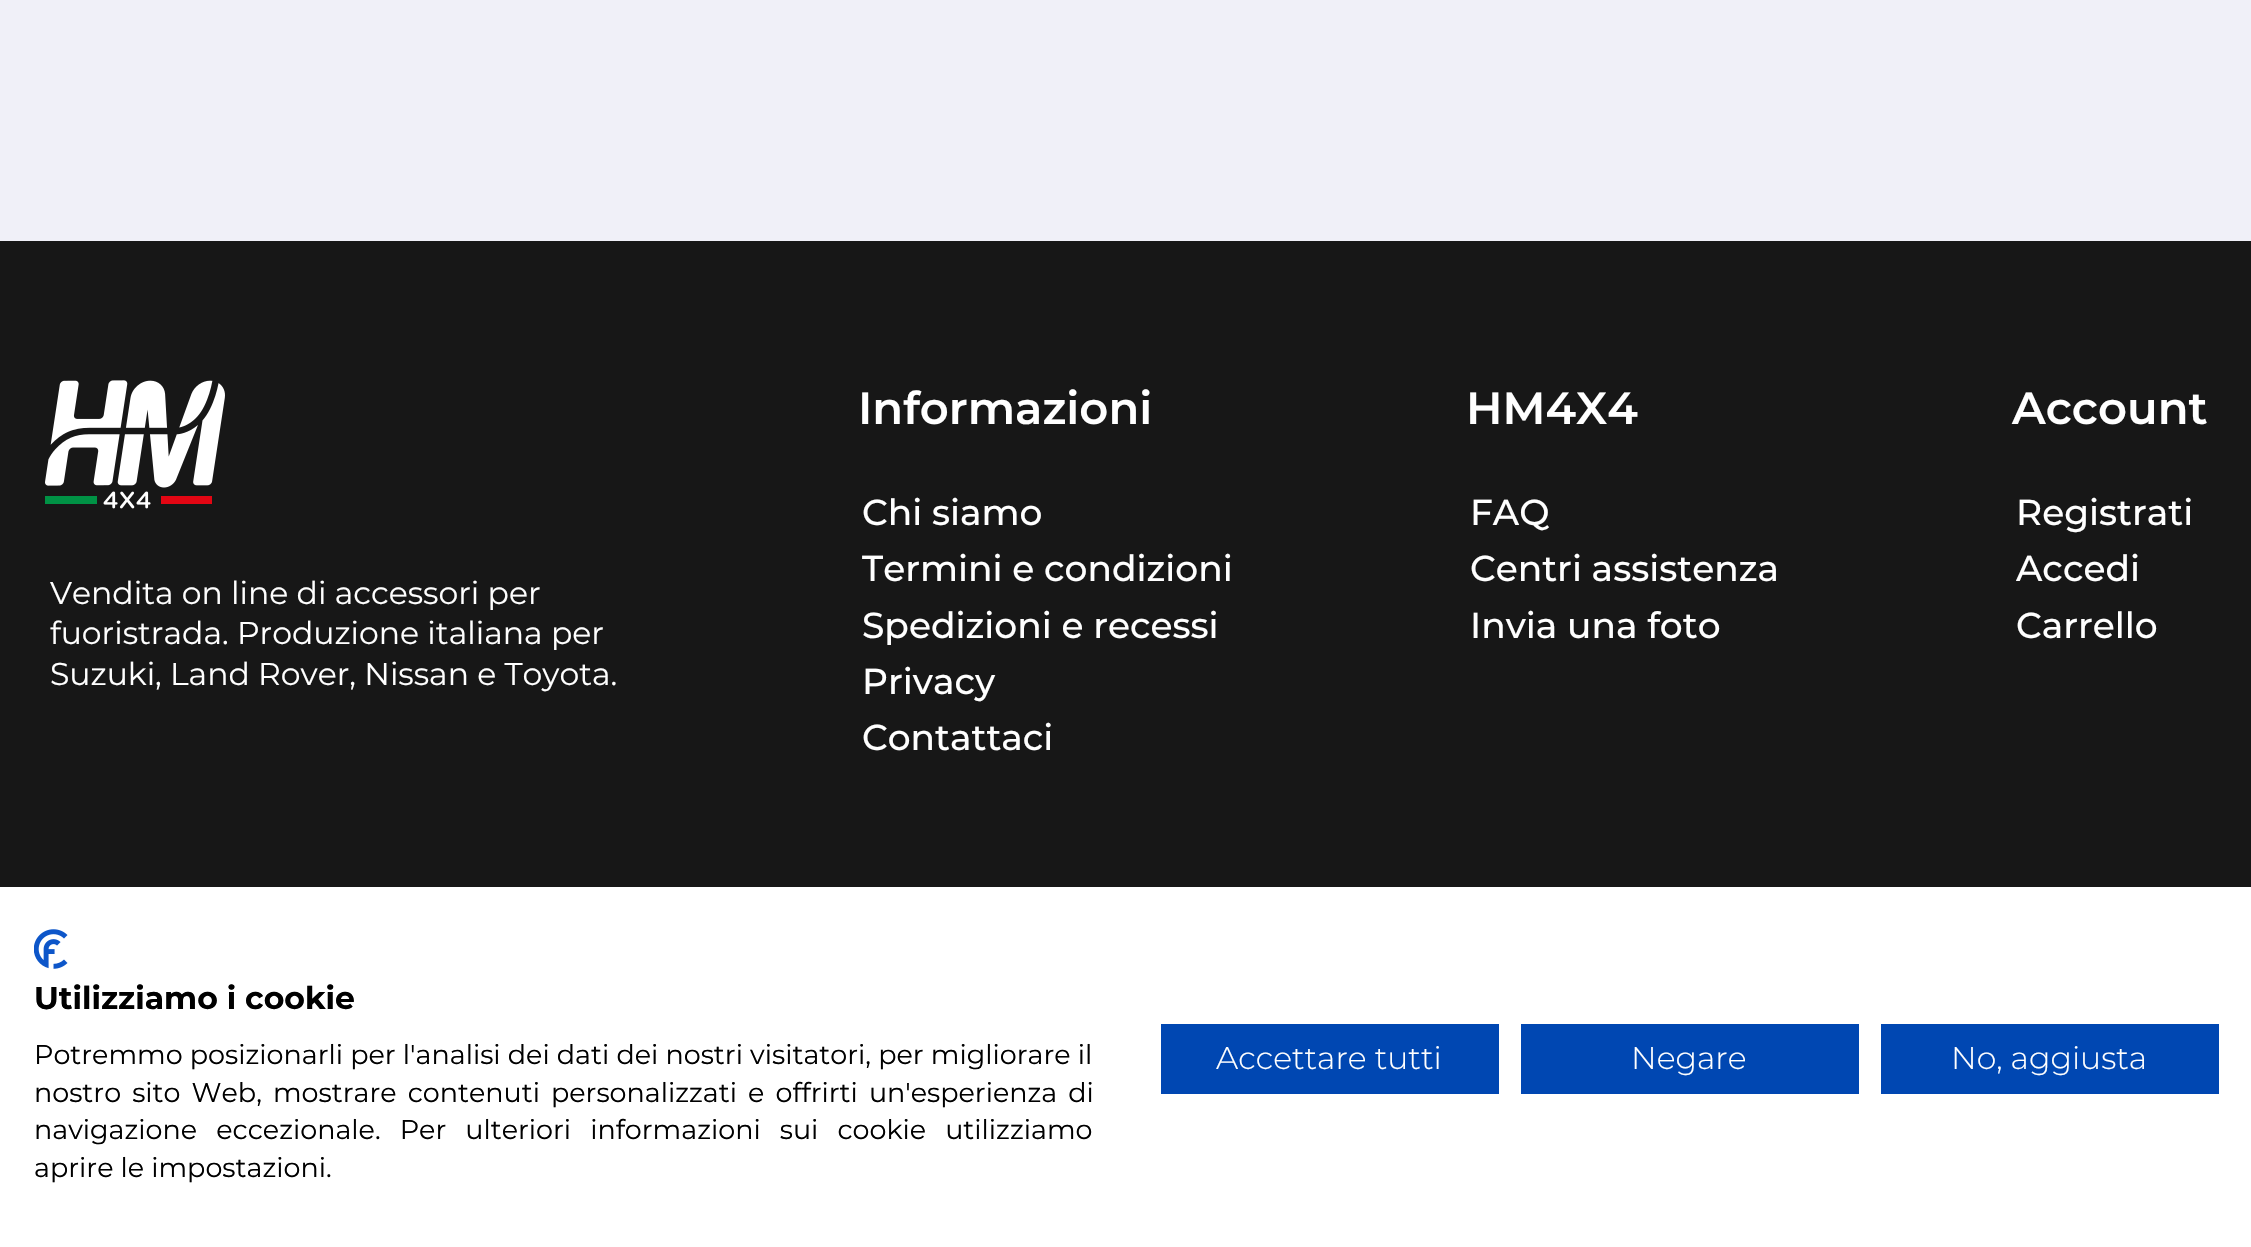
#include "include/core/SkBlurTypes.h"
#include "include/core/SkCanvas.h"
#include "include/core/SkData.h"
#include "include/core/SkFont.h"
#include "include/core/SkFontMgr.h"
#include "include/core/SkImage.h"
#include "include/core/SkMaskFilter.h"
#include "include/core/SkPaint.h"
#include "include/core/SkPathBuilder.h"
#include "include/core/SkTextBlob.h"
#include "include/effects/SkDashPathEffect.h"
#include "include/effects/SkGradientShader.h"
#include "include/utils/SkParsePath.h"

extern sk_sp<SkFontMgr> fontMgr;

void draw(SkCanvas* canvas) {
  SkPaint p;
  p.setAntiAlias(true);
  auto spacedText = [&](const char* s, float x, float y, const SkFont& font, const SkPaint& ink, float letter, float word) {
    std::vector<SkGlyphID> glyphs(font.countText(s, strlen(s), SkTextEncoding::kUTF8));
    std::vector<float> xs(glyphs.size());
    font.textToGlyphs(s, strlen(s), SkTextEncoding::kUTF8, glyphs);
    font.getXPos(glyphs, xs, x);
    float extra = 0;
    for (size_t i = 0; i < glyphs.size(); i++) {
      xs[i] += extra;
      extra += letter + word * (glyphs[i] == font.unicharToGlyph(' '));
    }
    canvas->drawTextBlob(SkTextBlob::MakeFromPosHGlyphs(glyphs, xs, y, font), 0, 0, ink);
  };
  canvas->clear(SkColorSetRGB(240, 240, 248));
  p.setColor(SkColorSetRGB(23, 23, 23));
  canvas->drawRect(SkRect::MakeLTRB(0, 241, 2251, 887), p);
  canvas->drawImageRect(SkImages::DeferredFromEncodedData(SkData::MakeFromFileName("images/1.png")), SkRect::MakeLTRB(45, 380, 225, 509), SkSamplingOptions());
  p.setColor(SK_ColorWHITE);
  canvas->drawRect(SkRect::MakeLTRB(0, 887, 2251, 1247), p);
  canvas->drawImageRect(SkImages::DeferredFromEncodedData(SkData::MakeFromFileName("images/2.png")), SkRect::MakeLTRB(34, 929, 68, 969), SkSamplingOptions());
  p.setColor(SkColorSetRGB(0, 71, 178));
  canvas->drawRect(SkRect::MakeLTRB(1161, 1024, 1499, 1094), p);
  canvas->drawRect(SkRect::MakeLTRB(1521, 1024, 1859, 1094), p);
  canvas->drawRect(SkRect::MakeLTRB(1881, 1024, 2219, 1094), p);
  SkFont font1(fontMgr->matchFamilyStyle("Montserrat", SkFontStyle::Normal()), 31.5f);
  font1.setSubpixel(true);
  p.setColor(SK_ColorWHITE);
  canvas->drawString("Vendita on line di accessori per", 50, 604, font1, p);
  canvas->drawString("fuoristrada. Produzione italiana per", 50, 644, font1, p);
  canvas->drawString("Suzuki, Land Rover, Nissan e Toyota.", 50, 685, font1, p);
  SkFont font2(fontMgr->matchFamilyStyle("Montserrat", SkFontStyle(600, SkFontStyle::kNormal_Width, SkFontStyle::kUpright_Slant)), 45);
  font2.setSubpixel(true);
  canvas->drawString("Informazioni", 858, 424, font2, p);
  SkFont font3(fontMgr->matchFamilyStyle("Montserrat", SkFontStyle(500, SkFontStyle::kNormal_Width, SkFontStyle::kUpright_Slant)), 36);
  font3.setSubpixel(true);
  canvas->drawString("Chi siamo", 862, 525, font3, p);
  canvas->drawString("Termini e condizioni", 862, 581, font3, p);
  canvas->drawString("Spedizioni e recessi", 862, 638, font3, p);
  canvas->drawString("Privacy", 862, 694, font3, p);
  canvas->drawString("Contattaci", 862, 750, font3, p);
  canvas->drawString("HM4X4", 1466, 424, font2, p);
  canvas->drawString("FAQ", 1470, 525, font3, p);
  canvas->drawString("Centri assistenza", 1470, 581, font3, p);
  canvas->drawString("Invia una foto", 1470, 638, font3, p);
  canvas->drawString("Account", 2012, 424, font2, p);
  canvas->drawString("Registrati", 2016, 525, font3, p);
  canvas->drawString("Accedi", 2016, 581, font3, p);
  canvas->drawString("Carrello", 2016, 638, font3, p);
  SkFont font4(fontMgr->matchFamilyStyle("Montserrat", SkFontStyle::Bold()), 31.5f);
  font4.setSubpixel(true);
  p.setColor(SK_ColorBLACK);
  canvas->drawString("Utilizziamo i cookie", 34, 1009, font4, p);
  SkFont font5(fontMgr->matchFamilyStyle("Montserrat", SkFontStyle::Normal()), 27);
  font5.setSubpixel(true);
  spacedText("Potremmo posizionarli per l'analisi dei dati dei nostri visitatori, per migliorare il", 34, 1064, font5, p, 0, 0.1f);
  spacedText("nostro sito Web, mostrare contenuti personalizzati e offrirti un'esperienza di", 34, 1102, font5, p, 0, 4);
  spacedText("navigazione eccezionale. Per ulteriori informazioni sui cookie utilizziamo", 34, 1139, font5, p, 0, 12);
  canvas->drawString("aprire le impostazioni.", 34, 1177, font5, p);
  SkFont font6(fontMgr->matchFamilyStyle("Montserrat", SkFontStyle(300, SkFontStyle::kNormal_Width, SkFontStyle::kUpright_Slant)), 31.5f);
  font6.setSubpixel(true);
  p.setColor(SK_ColorWHITE);
  canvas->drawString("Accettare tutti", 1216, 1069, font6, p);
  canvas->drawString("Negare", 1631, 1069, font6, p);
  canvas->drawString("No, aggiusta", 1951, 1069, font6, p);
}
